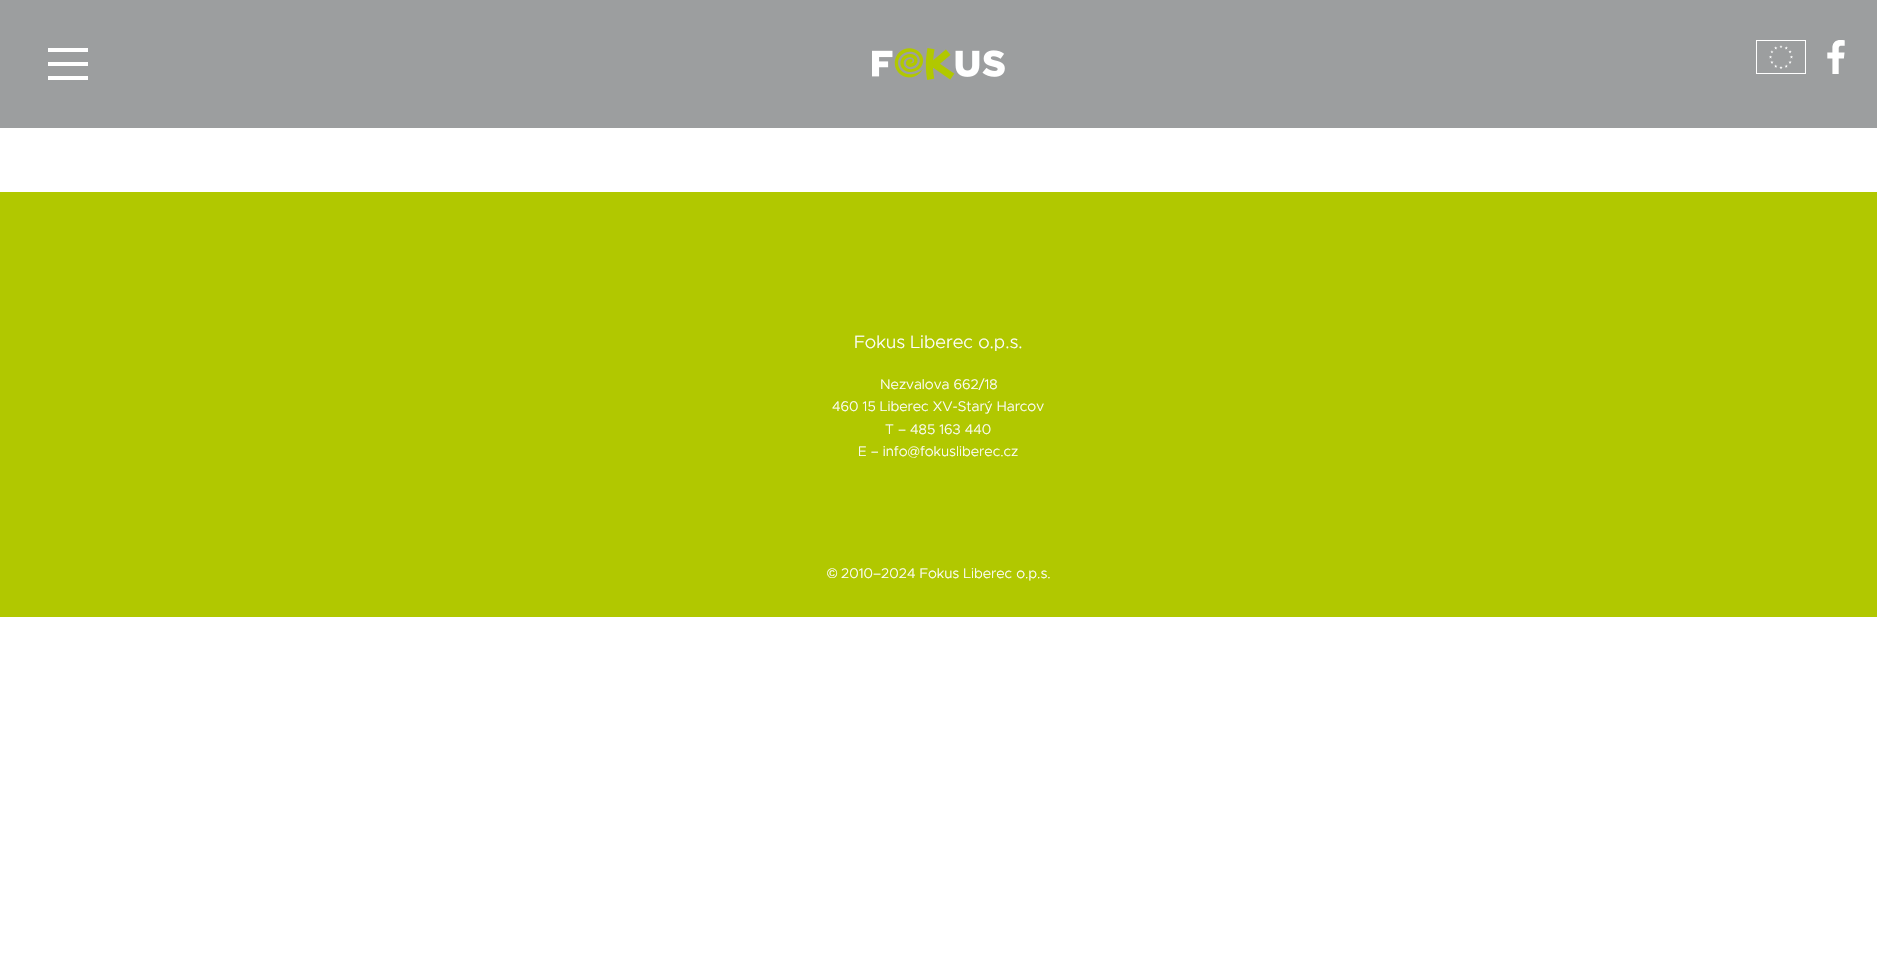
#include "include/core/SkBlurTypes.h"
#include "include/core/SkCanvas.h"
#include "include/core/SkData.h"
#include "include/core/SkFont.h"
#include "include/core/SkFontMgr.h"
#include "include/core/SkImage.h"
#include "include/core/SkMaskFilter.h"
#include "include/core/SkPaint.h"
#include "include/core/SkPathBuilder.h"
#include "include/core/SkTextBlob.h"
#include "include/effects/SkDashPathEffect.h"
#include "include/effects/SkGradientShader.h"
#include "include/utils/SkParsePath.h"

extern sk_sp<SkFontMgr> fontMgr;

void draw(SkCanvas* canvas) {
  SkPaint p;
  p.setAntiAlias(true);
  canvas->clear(SK_ColorWHITE);
  p.setColor(SkColorSetRGB(156, 158, 159));
  canvas->drawRect(SkRect::MakeLTRB(0, 0, 1877, 128), p);
  canvas->drawImageRect(SkImages::DeferredFromEncodedData(SkData::MakeFromFileName("images/1.png")), SkRect::MakeLTRB(872, 48, 1005, 80), SkSamplingOptions());
  canvas->drawImageRect(SkImages::DeferredFromEncodedData(SkData::MakeFromFileName("images/2.png")), SkRect::MakeLTRB(48, 48, 88, 80), SkSamplingOptions());
  p.setColor(SkColorSetRGB(177, 200, 0));
  canvas->drawRect(SkRect::MakeLTRB(0, 192, 1877, 617), p);
  canvas->drawImageRect(SkImages::DeferredFromEncodedData(SkData::MakeFromFileName("images/3.png")), SkRect::MakeLTRB(1756, 40, 1806, 74), SkSamplingOptions());
  canvas->drawImageRect(SkImages::DeferredFromEncodedData(SkData::MakeFromFileName("images/4.png")), SkRect::MakeLTRB(1827, 40, 1845, 74), SkSamplingOptions());
  SkFont font1(fontMgr->matchFamilyStyle("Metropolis", SkFontStyle(300, SkFontStyle::kNormal_Width, SkFontStyle::kUpright_Slant)), 18);
  font1.setSubpixel(true);
  p.setColor(SkColorSetRGB(254, 254, 254));
  canvas->drawString("Fokus Liberec o.p.s.", 854, 348, font1, p);
  SkFont font2(fontMgr->matchFamilyStyle("Metropolis", SkFontStyle(300, SkFontStyle::kNormal_Width, SkFontStyle::kUpright_Slant)), 14);
  font2.setSubpixel(true);
  canvas->drawString("Nezvalova 662/18", 880, 389, font2, p);
  canvas->drawString("460 15 Liberec XV-Starý Harcov", 832, 411, font2, p);
  canvas->drawString("T – 485 163 440", 885, 434, font2, p);
  canvas->drawString("E – info@fokusliberec.cz", 858, 456, font2, p);
  SkFont font3(fontMgr->matchFamilyStyle("Liberation Sans", SkFontStyle::Normal()), 14);
  font3.setSubpixel(true);
  canvas->drawString("©", 827, 578, font3, p);
  canvas->drawString("2010–2024 Fokus Liberec o.p.s.", 841, 578, font2, p);
}
